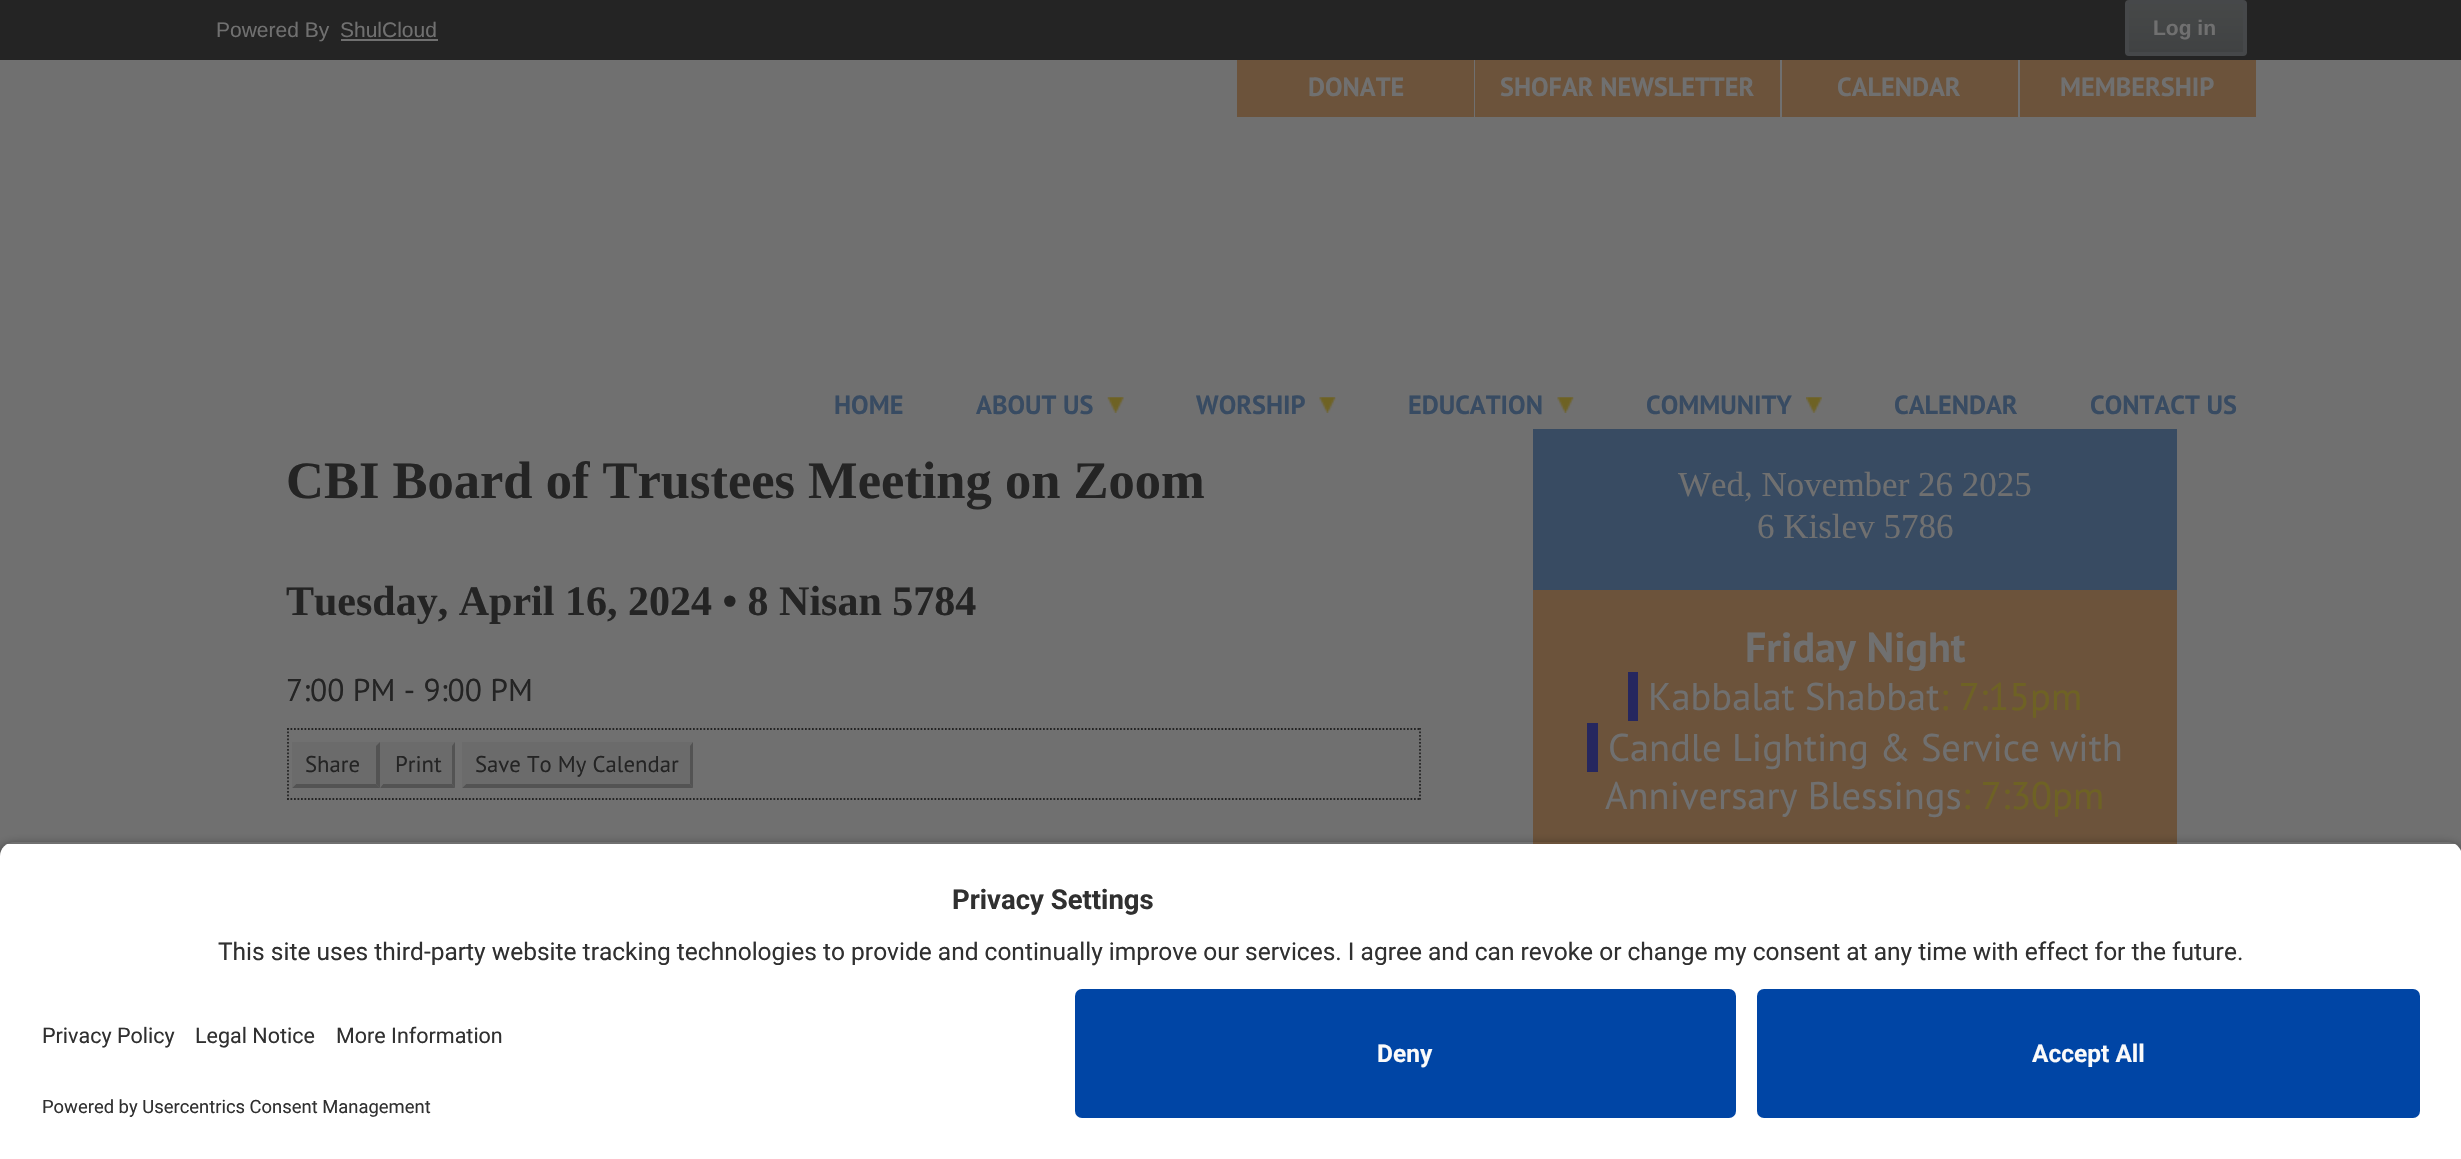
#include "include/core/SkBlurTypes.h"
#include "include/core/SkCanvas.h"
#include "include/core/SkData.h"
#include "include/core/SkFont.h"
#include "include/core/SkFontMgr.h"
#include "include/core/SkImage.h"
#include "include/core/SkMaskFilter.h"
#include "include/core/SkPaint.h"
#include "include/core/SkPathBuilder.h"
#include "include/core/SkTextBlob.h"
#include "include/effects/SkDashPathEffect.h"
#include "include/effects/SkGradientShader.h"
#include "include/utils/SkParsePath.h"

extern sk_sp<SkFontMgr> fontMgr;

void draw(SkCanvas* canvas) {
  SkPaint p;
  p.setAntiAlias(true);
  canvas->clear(SkColorSetRGB(112, 112, 112));
  p.setColor(SkColorSetRGB(36, 36, 36));
  canvas->drawRect(SkRect::MakeLTRB(0, 0, 2461, 60), p);
  p.setColor(SkColorSetRGB(112, 112, 112));
  canvas->drawRect(SkRect::MakeLTRB(341, 39, 438, 41), p);
  {
    const SkColor colors[] = {SkColorSetRGB(70, 72, 72), SkColorSetRGB(64, 66, 67)};
    const float stops[] = {0.05f, 1};
    const SkPoint ends[] = {{2186, 3.5f}, {2186, 53}};
    p.setShader(SkGradientShader::MakeLinear(ends, colors, stops, 2, SkTileMode::kClamp));
    p.setAlpha(255);
  }
  canvas->drawRect(SkRect::MakeLTRB(2125, 4, 2247, 53), p);
  p.setStyle(SkPaint::kStroke_Style);
  p.setStrokeWidth(4);
  p.setShader(nullptr);
  p.setColor(SkColorSetRGB(70, 72, 74));
  canvas->drawRoundRect(SkRect::MakeLTRB(2127, 2, 2245, 54), 2, 2, p);
  p.setStyle(SkPaint::kFill_Style);
  p.setColor(SkColorSetRGB(108, 83, 59));
  canvas->drawRect(SkRect::MakeLTRB(1237, 60, 1474, 117), p);
  canvas->drawRect(SkRect::MakeLTRB(1475, 60, 1780, 117), p);
  canvas->drawRect(SkRect::MakeLTRB(1782, 60, 2018, 117), p);
  canvas->drawRect(SkRect::MakeLTRB(2020, 60, 2256, 117), p);
  canvas->drawImageRect(SkImages::DeferredFromEncodedData(SkData::MakeFromFileName("images/1.png")), SkRect::MakeLTRB(1107, 397, 1124, 413), SkSamplingOptions());
  canvas->drawImageRect(SkImages::DeferredFromEncodedData(SkData::MakeFromFileName("images/2.png")), SkRect::MakeLTRB(1319, 397, 1336, 413), SkSamplingOptions());
  canvas->drawImageRect(SkImages::DeferredFromEncodedData(SkData::MakeFromFileName("images/2.png")), SkRect::MakeLTRB(1557, 397, 1574, 413), SkSamplingOptions());
  canvas->drawImageRect(SkImages::DeferredFromEncodedData(SkData::MakeFromFileName("images/3.png")), SkRect::MakeLTRB(1806, 397, 1822, 413), SkSamplingOptions());
  p.setStyle(SkPaint::kStroke_Style);
  p.setStrokeWidth(1.8f);
  p.setColor(SkColorSetRGB(36, 36, 36));
  p.setPathEffect(SkDashPathEffect::Make({{1.75f, 1.75f}}, 0));
  canvas->drawPath(SkPathBuilder().moveTo(287, 729).lineTo(1421, 729).detach(), p);
  p.setPathEffect(nullptr);
  p.setPathEffect(SkDashPathEffect::Make({{1.75f, 1.75f}}, 0));
  canvas->drawPath(SkPathBuilder().moveTo(1420, 728).lineTo(1420, 800).detach(), p);
  p.setPathEffect(nullptr);
  p.setPathEffect(SkDashPathEffect::Make({{1.75f, 1.75f}}, 0));
  canvas->drawPath(SkPathBuilder().moveTo(287, 799).lineTo(1421, 799).detach(), p);
  p.setPathEffect(nullptr);
  p.setPathEffect(SkDashPathEffect::Make({{1.75f, 1.75f}}, 0));
  canvas->drawPath(SkPathBuilder().moveTo(288, 728).lineTo(288, 800).detach(), p);
  p.setPathEffect(nullptr);
  p.setStyle(SkPaint::kFill_Style);
  p.setColor(SkColorSetRGB(107, 107, 107));
  canvas->drawRect(SkRect::MakeLTRB(292, 742, 455, 788), p);
  p.setColor(SkColorSetRGB(83, 83, 83));
  canvas->drawPath(SkPathBuilder().moveTo(380, 742).lineTo(380, 788).lineTo(376, 784).lineTo(376, 746).close().detach(), p);
  canvas->drawPath(SkPathBuilder().moveTo(380, 788).lineTo(292, 788).lineTo(296, 784).lineTo(376, 784).close().detach(), p);
  p.setColor(SkColorSetRGB(107, 107, 107));
  canvas->drawPath(SkPathBuilder().moveTo(292, 788).lineTo(292, 742).lineTo(296, 746).lineTo(296, 784).close().detach(), p);
  p.setColor(SkColorSetRGB(83, 83, 83));
  canvas->drawPath(SkPathBuilder().moveTo(455, 742).lineTo(455, 788).lineTo(452, 784).lineTo(452, 746).close().detach(), p);
  canvas->drawPath(SkPathBuilder().moveTo(455, 788).lineTo(380, 788).lineTo(383, 784).lineTo(452, 784).close().detach(), p);
  p.setColor(SkColorSetRGB(107, 107, 107));
  canvas->drawPath(SkPathBuilder().moveTo(380, 788).lineTo(380, 742).lineTo(383, 746).lineTo(383, 784).close().detach(), p);
  canvas->drawRect(SkRect::MakeLTRB(462, 742, 693, 788), p);
  p.setColor(SkColorSetRGB(83, 83, 83));
  canvas->drawPath(SkPathBuilder().moveTo(693, 742).lineTo(693, 788).lineTo(690, 784).lineTo(690, 746).close().detach(), p);
  canvas->drawPath(SkPathBuilder().moveTo(693, 788).lineTo(462, 788).lineTo(466, 784).lineTo(690, 784).close().detach(), p);
  p.setColor(SkColorSetRGB(107, 107, 107));
  canvas->drawPath(SkPathBuilder().moveTo(462, 788).lineTo(462, 742).lineTo(466, 746).lineTo(466, 784).close().detach(), p);
  p.setColor(SkColorSetRGB(56, 75, 98));
  canvas->drawRect(SkRect::MakeLTRB(1533, 429, 2177, 590), p);
  p.setColor(SkColorSetRGB(108, 83, 59));
  canvas->drawRect(SkRect::MakeLTRB(1533, 590, 2177, 844), p);
  p.setColor(SkColorSetRGB(38, 39, 95));
  canvas->drawRect(SkRect::MakeLTRB(1628, 672, 1638, 721), p);
  canvas->drawRect(SkRect::MakeLTRB(1587, 723, 1598, 772), p);
  canvas->save();
  canvas->clipPath(SkPathBuilder(SkPathFillType::kEvenOdd).moveTo(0, 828).lineTo(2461, 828).lineTo(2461, 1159).lineTo(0, 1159).close().moveTo(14, 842).lineTo(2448, 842).cubicTo(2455.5f, 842, 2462, 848.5f, 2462, 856).lineTo(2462, 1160).lineTo(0, 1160).lineTo(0, 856).cubicTo(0, 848.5f, 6.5f, 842, 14, 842).close().detach(), true);
  p.setColor(SkColorSetARGB(204, 0, 0, 0));
  p.setMaskFilter(SkMaskFilter::MakeBlur(kNormal_SkBlurStyle, 6));
  canvas->drawRoundRect(SkRect::MakeLTRB(0, 847, 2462, 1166), 14, 14, p);
  p.setMaskFilter(nullptr);
  canvas->restore();
  canvas->save();
  canvas->clipPath(SkPathBuilder().moveTo(14, 842).lineTo(2448, 842).cubicTo(2455.5f, 842, 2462, 848.5f, 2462, 856).lineTo(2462, 975).lineTo(0, 975).lineTo(0, 856).cubicTo(0, 848.5f, 6.5f, 842, 14, 842).close().detach(), true);
  p.setColor(SK_ColorWHITE);
  canvas->drawRect(SkRect::MakeLTRB(0, 844, 2461, 975), p);
  canvas->restore();
  canvas->drawRect(SkRect::MakeLTRB(0, 975, 2461, 1159), p);
  p.setColor(SkColorSetRGB(0, 69, 165));
  canvas->drawRoundRect(SkRect::MakeLTRB(1075, 989, 1736, 1118), 7, 7, p);
  canvas->drawRoundRect(SkRect::MakeLTRB(1757, 989, 2420, 1118), 7, 7, p);
  SkFont font1(fontMgr->matchFamilyStyle("Liberation Sans", SkFontStyle::Normal()), 21);
  font1.setSubpixel(true);
  p.setColor(SkColorSetRGB(112, 112, 112));
  canvas->drawString("Powered By", 216, 37, font1, p);
  canvas->drawString("ShulCloud", 340, 37, font1, p);
  SkFont font2(fontMgr->matchFamilyStyle("Liberation Sans", SkFontStyle::Bold()), 21);
  font2.setSubpixel(true);
  canvas->drawString("Log in", 2153, 35, font2, p);
  SkFont font3(fontMgr->matchFamilyStyle("PT Sans", SkFontStyle::Bold()), 26.25f);
  font3.setSubpixel(true);
  canvas->drawString("DONATE", 1308, 96, font3, p);
  canvas->drawString("SHOFAR NEWSLETTER", 1500, 96, font3, p);
  canvas->drawString("CALENDAR", 1837, 96, font3, p);
  canvas->drawString("MEMBERSHIP", 2060, 96, font3, p);
  p.setColor(SkColorSetRGB(56, 75, 98));
  canvas->drawString("HOME", 834, 414, font3, p);
  canvas->drawString("ABOUT US", 976, 414, font3, p);
  canvas->drawString("WORSHIP", 1196, 414, font3, p);
  canvas->drawString("EDUCATION", 1408, 414, font3, p);
  canvas->drawString("COMMUNITY", 1646, 414, font3, p);
  canvas->drawString("CALENDAR", 1894, 414, font3, p);
  canvas->drawString("CONTACT US", 2090, 414, font3, p);
  SkFont font4(fontMgr->matchFamilyStyle("Liberation Serif", SkFontStyle::Bold()), 52.5f);
  font4.setSubpixel(true);
  p.setColor(SkColorSetRGB(36, 36, 36));
  canvas->drawString("CBI Board of Trustees Meeting on Zoom", 286, 498, font4, p);
  SkFont font5(fontMgr->matchFamilyStyle("Liberation Serif", SkFontStyle::Bold()), 42);
  font5.setSubpixel(true);
  canvas->drawString("Tuesday, April 16, 2024 • 8 Nisan 5784", 286, 615, font5, p);
  SkFont font6(fontMgr->matchFamilyStyle("PT Sans", SkFontStyle::Normal()), 31.5f);
  font6.setSubpixel(true);
  canvas->drawString("7:00 PM - 9:00 PM", 286, 701, font6, p);
  SkFont font7(fontMgr->matchFamilyStyle("PT Sans", SkFontStyle::Normal()), 22.75f);
  font7.setSubpixel(true);
  canvas->drawString("Share", 305, 772, font7, p);
  canvas->drawString("Print", 395, 772, font7, p);
  canvas->drawString("Save To My Calendar", 475, 772, font7, p);
  SkFont font8(fontMgr->matchFamilyStyle("Liberation Serif", SkFontStyle::Normal()), 35);
  font8.setSubpixel(true);
  p.setColor(SkColorSetRGB(112, 112, 112));
  canvas->drawString("Wed, November 26 2025", 1678, 496, font8, p);
  canvas->drawString("6 Kislev 5786", 1757, 538, font8, p);
  SkFont font9(fontMgr->matchFamilyStyle("PT Sans", SkFontStyle::Bold()), 42);
  font9.setSubpixel(true);
  canvas->drawString("Friday Night", 1745, 662, font9, p);
  SkFont font10(fontMgr->matchFamilyStyle("PT Sans", SkFontStyle::Normal()), 38.5f);
  font10.setSubpixel(true);
  canvas->drawString("Kabbalat Shabbat", 1648, 710, font10, p);
  p.setColor(SkColorSetRGB(110, 98, 36));
  canvas->drawString(": 7:15pm", 1940, 710, font10, p);
  p.setColor(SkColorSetRGB(112, 112, 112));
  canvas->drawString("Candle Lighting & Service with", 1608, 761, font10, p);
  canvas->drawString("Anniversary Blessings", 1605, 809, font10, p);
  p.setColor(SkColorSetRGB(110, 98, 36));
  canvas->drawString(": 7:30pm", 1962, 809, font10, p);
  SkFont font11(fontMgr->matchFamilyStyle("Roboto", SkFontStyle::Bold()), 27.5f);
  font11.setSubpixel(true);
  p.setColor(SkColorSetRGB(48, 48, 48));
  canvas->drawString("Privacy Settings", 952, 909, font11, p);
  SkFont font12(fontMgr->matchFamilyStyle("Roboto", SkFontStyle::Normal()), 24.5f);
  font12.setSubpixel(true);
  canvas->drawString("This site uses third-party website tracking technologies to provide and continually improve our services. I agree and can revoke or change my consent at any time with effect for the future.", 218, 960, font12, p);
  SkFont font13(fontMgr->matchFamilyStyle("Roboto", SkFontStyle::Normal()), 21.5f);
  font13.setSubpixel(true);
  canvas->drawString("Privacy Policy", 42, 1043, font13, p);
  canvas->drawString("Legal Notice", 195, 1043, font13, p);
  canvas->drawString("More Information", 336, 1043, font13, p);
  SkFont font14(fontMgr->matchFamilyStyle("Roboto", SkFontStyle::Normal()), 18.4f);
  font14.setSubpixel(true);
  canvas->drawString("Powered by Usercentrics Consent Management", 42, 1113, font14, p);
  SkFont font15(fontMgr->matchFamilyStyle("Roboto", SkFontStyle::Bold()), 24.5f);
  font15.setSubpixel(true);
  p.setColor(SkColorSetRGB(250, 250, 250));
  canvas->drawString("Deny", 1377, 1062, font15, p);
  canvas->drawString("Accept All", 2032, 1062, font15, p);
}
